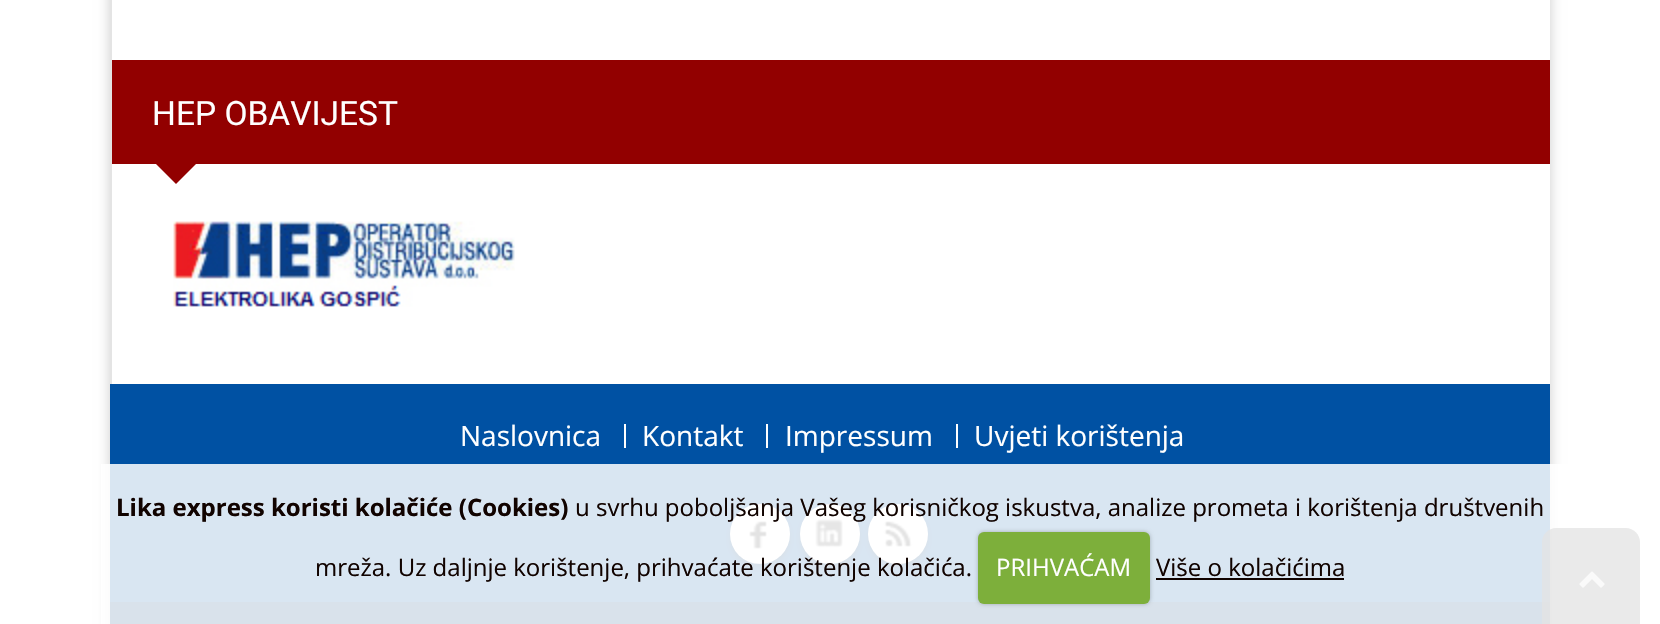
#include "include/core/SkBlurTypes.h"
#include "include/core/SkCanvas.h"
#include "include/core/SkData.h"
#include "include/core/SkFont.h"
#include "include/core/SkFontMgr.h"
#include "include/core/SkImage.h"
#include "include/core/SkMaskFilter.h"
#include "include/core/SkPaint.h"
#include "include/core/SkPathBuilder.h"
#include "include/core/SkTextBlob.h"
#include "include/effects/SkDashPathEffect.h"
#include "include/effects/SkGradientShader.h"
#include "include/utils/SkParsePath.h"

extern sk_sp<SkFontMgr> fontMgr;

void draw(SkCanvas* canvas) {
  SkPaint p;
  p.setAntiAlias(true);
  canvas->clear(SK_ColorWHITE);
  canvas->save();
  canvas->clipPath(SkPathBuilder(SkPathFillType::kEvenOdd).moveTo(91, 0).lineTo(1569, 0).lineTo(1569, 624).lineTo(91, 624).close().moveTo(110, -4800).lineTo(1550, -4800).lineTo(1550, 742).lineTo(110, 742).close().detach(), true);
  p.setColor(SkColorSetARGB(51, 0, 0, 0));
  p.setMaskFilter(SkMaskFilter::MakeBlur(kNormal_SkBlurStyle, 6));
  canvas->drawRect(SkRect::MakeLTRB(110, -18, 1550, 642), p);
  p.setMaskFilter(nullptr);
  canvas->restore();
  p.setColor(SkColorSetRGB(228, 228, 228));
  canvas->drawRect(SkRect::MakeLTRB(110, 0, 112, 384), p);
  p.setColor(SkColorSetRGB(146, 0, 0));
  canvas->drawRect(SkRect::MakeLTRB(112, 60, 1550, 164), p);
  canvas->drawPath(SkPathBuilder().moveTo(156, 164).lineTo(196, 164).lineTo(176, 184).close().detach(), p);
  canvas->drawImageRect(SkImages::DeferredFromEncodedData(SkData::MakeFromFileName("images/1.png")), SkRect::MakeLTRB(173, 221, 515, 307), SkSamplingOptions());
  p.setColor(SkColorSetRGB(0, 81, 163));
  canvas->drawRect(SkRect::MakeLTRB(110, 384, 1550, 602), p);
  p.setColor(SK_ColorWHITE);
  canvas->drawRect(SkRect::MakeLTRB(624, 424, 626, 448), p);
  canvas->drawRect(SkRect::MakeLTRB(766, 424, 768, 448), p);
  canvas->drawRect(SkRect::MakeLTRB(956, 424, 958, 448), p);
  p.setColor(SkColorSetARGB(77, 0, 0, 0));
  p.setMaskFilter(SkMaskFilter::MakeBlur(kNormal_SkBlurStyle, 2));
  canvas->drawRoundRect(SkRect::MakeLTRB(730, 508, 790, 568), 30, 30, p);
  p.setMaskFilter(nullptr);
  p.setColor(SK_ColorWHITE);
  canvas->drawCircle(760, 534, 30, p);
  canvas->drawImageRect(SkImages::DeferredFromEncodedData(SkData::MakeFromFileName("images/2.png")), SkRect::MakeLTRB(749, 504, 767, 564), SkSamplingOptions());
  p.setColor(SkColorSetARGB(77, 0, 0, 0));
  p.setMaskFilter(SkMaskFilter::MakeBlur(kNormal_SkBlurStyle, 2));
  canvas->drawRoundRect(SkRect::MakeLTRB(800, 508, 860, 568), 30, 30, p);
  p.setMaskFilter(nullptr);
  p.setColor(SK_ColorWHITE);
  canvas->drawCircle(830, 534, 30, p);
  canvas->drawImageRect(SkImages::DeferredFromEncodedData(SkData::MakeFromFileName("images/3.png")), SkRect::MakeLTRB(815, 504, 843, 564), SkSamplingOptions());
  p.setColor(SkColorSetARGB(77, 0, 0, 0));
  p.setMaskFilter(SkMaskFilter::MakeBlur(kNormal_SkBlurStyle, 2));
  canvas->drawRoundRect(SkRect::MakeLTRB(868, 508, 928, 568), 30, 30, p);
  p.setMaskFilter(nullptr);
  p.setColor(SK_ColorWHITE);
  canvas->drawCircle(898, 534, 30, p);
  canvas->drawImageRect(SkImages::DeferredFromEncodedData(SkData::MakeFromFileName("images/4.png")), SkRect::MakeLTRB(883, 504, 913, 564), SkSamplingOptions());
  p.setColor(SkColorSetRGB(0, 59, 118));
  canvas->drawRect(SkRect::MakeLTRB(110, 602, 1550, 624), p);
  p.setColor(SkColorSetARGB(191, 64, 64, 64));
  canvas->drawPath(SkPathBuilder().moveTo(1556, 528).lineTo(1626, 528).cubicTo(1633.5f, 528, 1640, 534.5f, 1640, 542).lineTo(1640, 624).lineTo(1542, 624).lineTo(1542, 542).cubicTo(1542, 534.5f, 1548.5f, 528, 1556, 528).close().detach(), p);
  canvas->drawImageRect(SkImages::DeferredFromEncodedData(SkData::MakeFromFileName("images/5.png")), SkRect::MakeLTRB(1579, 571, 1605, 588), SkSamplingOptions());
  p.setColor(SkColorSetARGB(217, 255, 255, 255));
  canvas->drawRect(SkRect::MakeLTRB(101, 464, 1640, 624), p);
  p.setColor(SkColorSetARGB(64, 0, 0, 0));
  p.setMaskFilter(SkMaskFilter::MakeBlur(kNormal_SkBlurStyle, 2));
  canvas->drawRoundRect(SkRect::MakeLTRB(978, 532, 1150, 604), 6, 6, p);
  p.setMaskFilter(nullptr);
  p.setColor(SkColorSetRGB(125, 175, 59));
  canvas->drawRoundRect(SkRect::MakeLTRB(978, 532, 1150, 604), 6, 6, p);
  p.setColor(SkColorSetRGB(17, 3, 0));
  canvas->drawRect(SkRect::MakeLTRB(1156, 578, 1344, 580), p);
  SkFont font1(fontMgr->matchFamilyStyle("Roboto", SkFontStyle::Normal()), 33.5f);
  font1.setSubpixel(true);
  p.setColor(SK_ColorWHITE);
  canvas->drawString("HEP OBAVIJEST", 152, 125, font1, p);
  SkFont font2(fontMgr->matchFamilyStyle("Open Sans", SkFontStyle::Normal()), 28);
  font2.setSubpixel(true);
  canvas->drawString("Naslovnica", 460, 446, font2, p);
  canvas->drawString("Kontakt", 642, 446, font2, p);
  canvas->drawString("Impressum", 785, 446, font2, p);
  canvas->drawString("Uvjeti korištenja", 974, 446, font2, p);
  SkFont font3(fontMgr->matchFamilyStyle("Open Sans", SkFontStyle::Bold()), 24);
  font3.setSubpixel(true);
  p.setColor(SkColorSetRGB(17, 3, 0));
  canvas->drawString("Lika express koristi kolačiće (Cookies)", 116, 516, font3, p);
  SkFont font4(fontMgr->matchFamilyStyle("Open Sans", SkFontStyle::Normal()), 24);
  font4.setSubpixel(true);
  canvas->drawString("u svrhu poboljšanja Vašeg korisničkog iskustva, analize prometa i korištenja društvenih", 575, 516, font4, p);
  canvas->drawString("mreža. Uz daljnje korištenje, prihvaćate korištenje kolačića.", 315, 576, font4, p);
  p.setColor(SK_ColorWHITE);
  canvas->drawString("PRIHVAĆAM", 996, 576, font4, p);
  p.setColor(SkColorSetRGB(17, 3, 0));
  canvas->drawString("Više o kolačićima", 1156, 576, font4, p);
}
